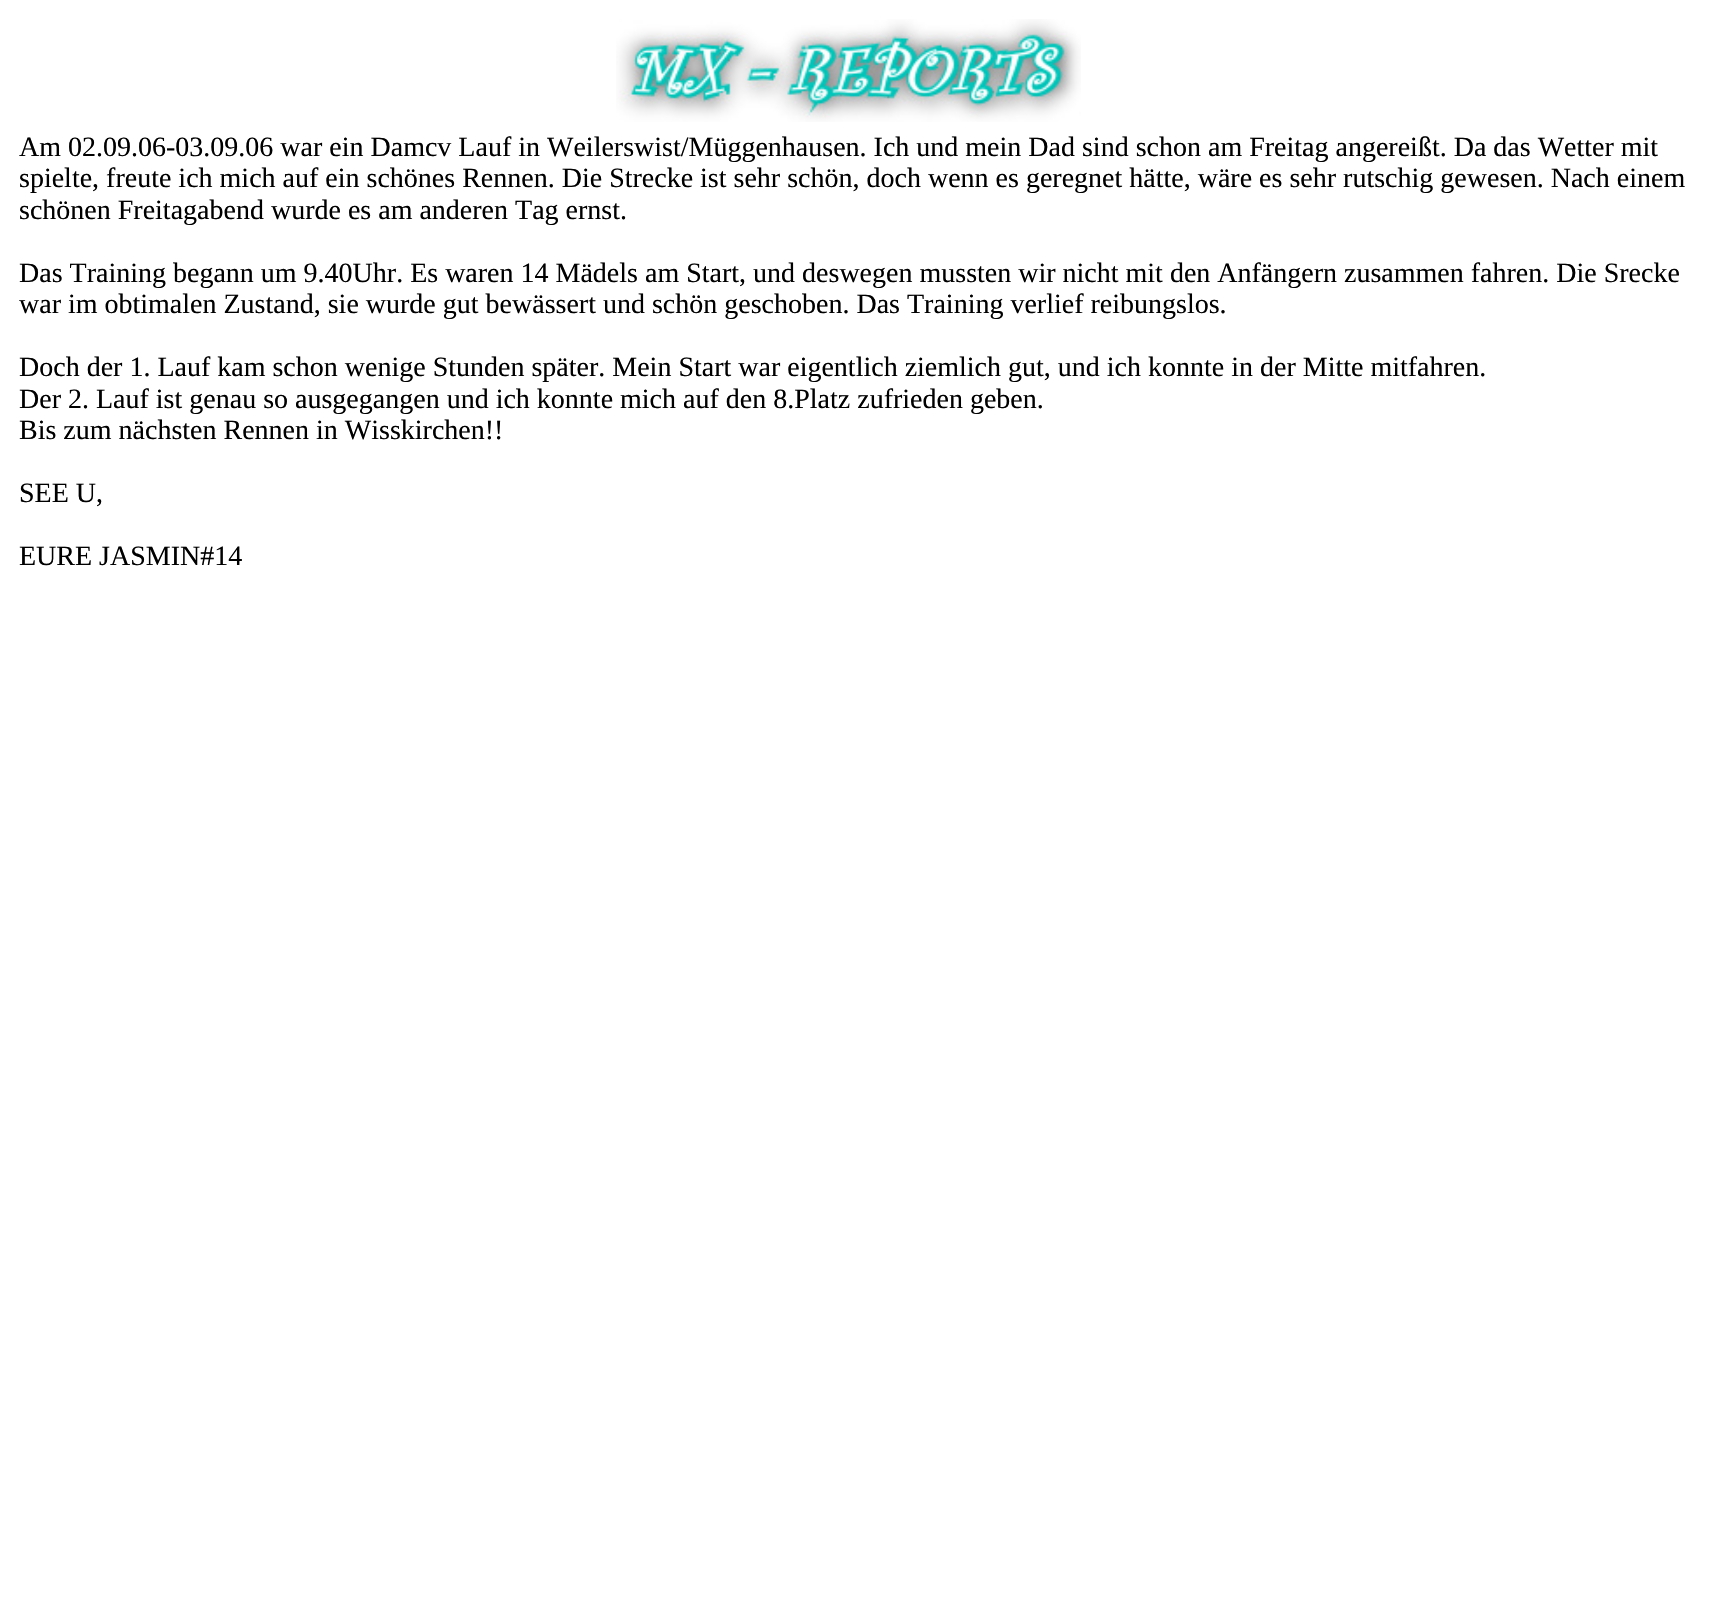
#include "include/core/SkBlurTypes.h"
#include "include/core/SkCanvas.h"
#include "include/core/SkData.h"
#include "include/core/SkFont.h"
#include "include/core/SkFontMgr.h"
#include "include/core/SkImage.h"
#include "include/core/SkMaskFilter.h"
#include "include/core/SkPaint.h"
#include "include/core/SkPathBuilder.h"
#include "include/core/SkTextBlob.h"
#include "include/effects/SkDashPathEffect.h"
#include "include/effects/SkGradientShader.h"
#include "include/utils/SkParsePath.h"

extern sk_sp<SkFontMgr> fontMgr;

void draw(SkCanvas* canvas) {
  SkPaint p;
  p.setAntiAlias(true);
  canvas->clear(SK_ColorWHITE);
  canvas->drawImageRect(SkImages::DeferredFromEncodedData(SkData::MakeFromFileName("images/1.png")), SkRect::MakeLTRB(616, 19, 1081, 122), SkSamplingOptions());
  SkFont font1(fontMgr->matchFamilyStyle("Liberation Serif", SkFontStyle::Normal()), 28);
  font1.setSubpixel(true);
  p.setColor(SK_ColorBLACK);
  canvas->drawString("Am 02.09.06-03.09.06 war ein Damcv Lauf in Weilerswist/Müggenhausen. Ich und mein Dad sind schon am Freitag angereißt. Da das Wetter mit", 19, 156, font1, p);
  canvas->drawString("spielte, freute ich mich auf ein schönes Rennen. Die Strecke ist sehr schön, doch wenn es geregnet hätte, wäre es sehr rutschig gewesen. Nach einem", 19, 187, font1, p);
  canvas->drawString("schönen Freitagabend wurde es am anderen Tag ernst.", 19, 219, font1, p);
  canvas->drawString("Das Training begann um 9.40Uhr. Es waren 14 Mädels am Start, und deswegen mussten wir nicht mit den Anfängern zusammen fahren. Die Srecke", 19, 282, font1, p);
  canvas->drawString("war im obtimalen Zustand, sie wurde gut bewässert und schön geschoben. Das Training verlief reibungslos.", 19, 313, font1, p);
  canvas->drawString("Doch der 1. Lauf kam schon wenige Stunden später. Mein Start war eigentlich ziemlich gut, und ich konnte in der Mitte mitfahren.", 19, 376, font1, p);
  canvas->drawString("Der 2. Lauf ist genau so ausgegangen und ich konnte mich auf den 8.Platz zufrieden geben.", 19, 408, font1, p);
  canvas->drawString("Bis zum nächsten Rennen in Wisskirchen!!", 19, 439, font1, p);
  canvas->drawString("SEE U,", 19, 502, font1, p);
  canvas->drawString("EURE JASMIN#14", 19, 565, font1, p);
}
